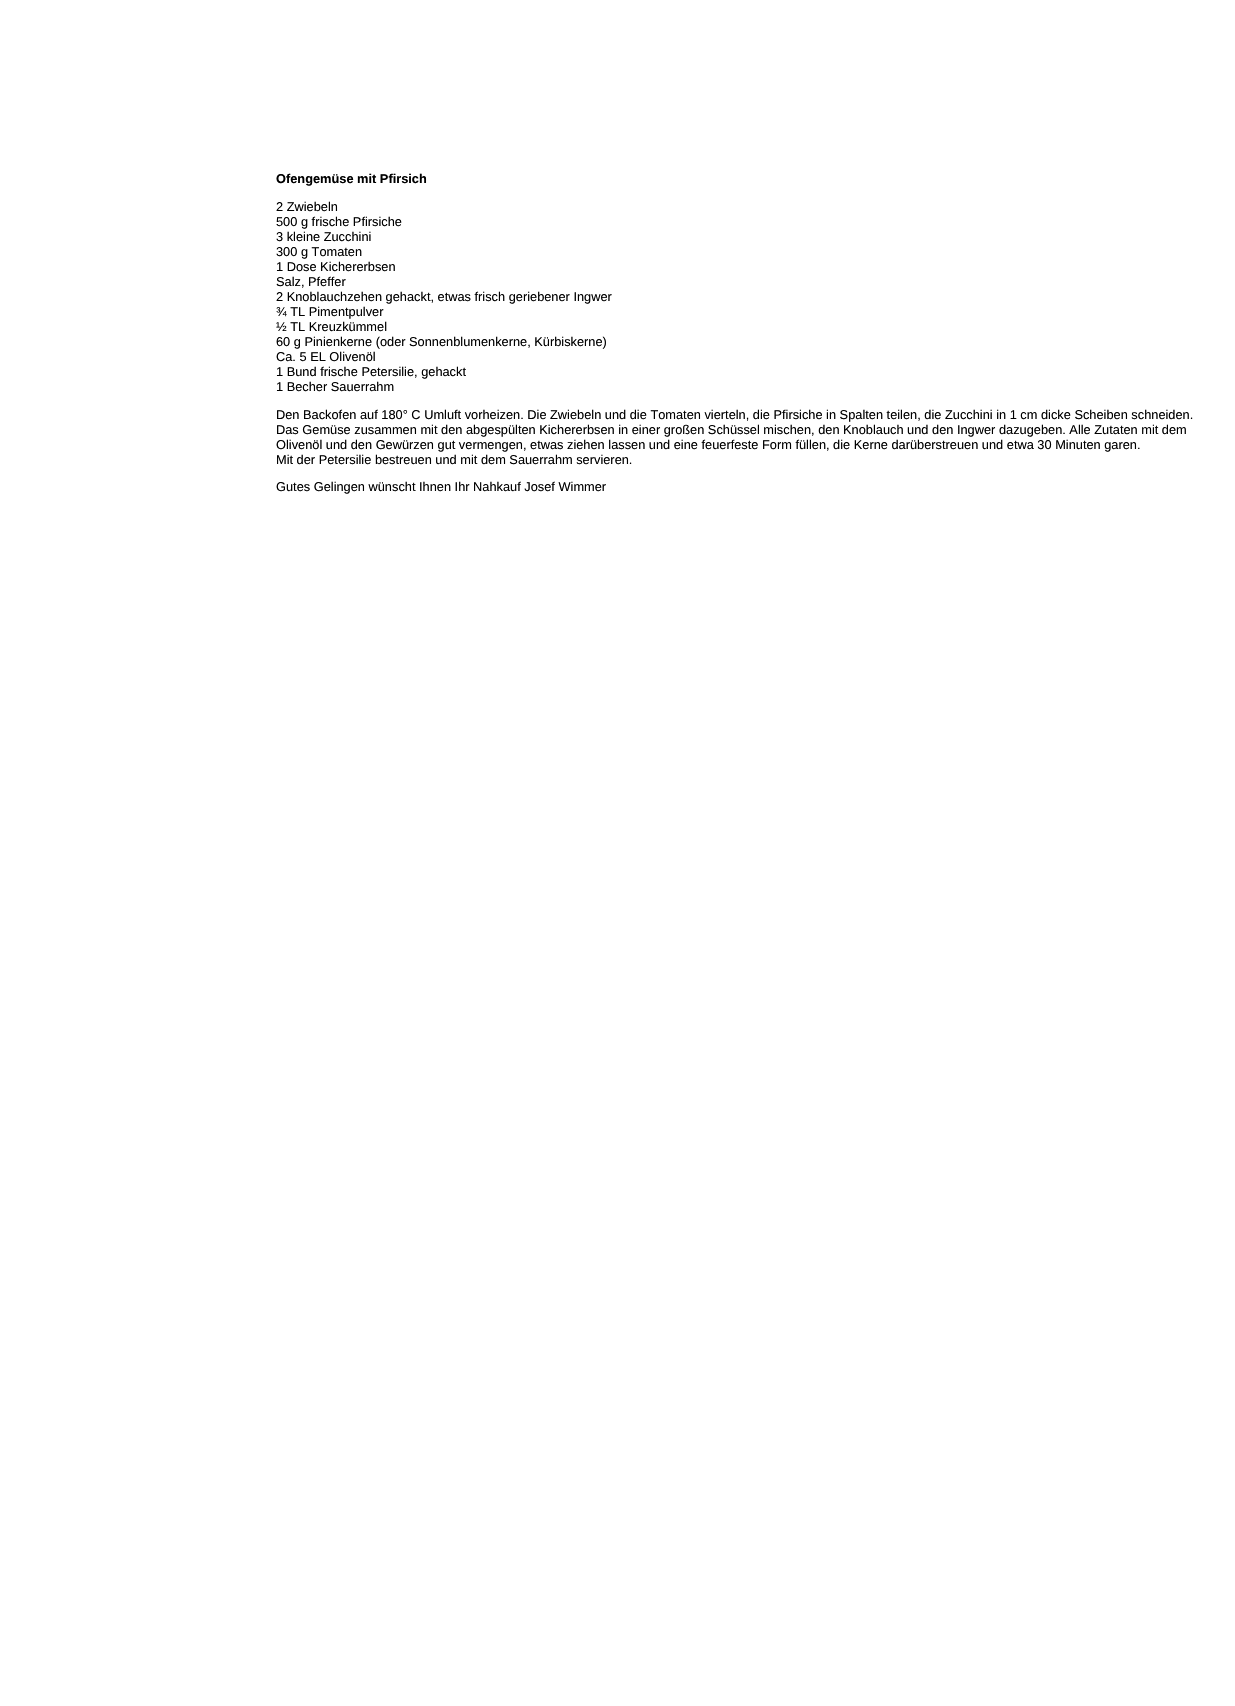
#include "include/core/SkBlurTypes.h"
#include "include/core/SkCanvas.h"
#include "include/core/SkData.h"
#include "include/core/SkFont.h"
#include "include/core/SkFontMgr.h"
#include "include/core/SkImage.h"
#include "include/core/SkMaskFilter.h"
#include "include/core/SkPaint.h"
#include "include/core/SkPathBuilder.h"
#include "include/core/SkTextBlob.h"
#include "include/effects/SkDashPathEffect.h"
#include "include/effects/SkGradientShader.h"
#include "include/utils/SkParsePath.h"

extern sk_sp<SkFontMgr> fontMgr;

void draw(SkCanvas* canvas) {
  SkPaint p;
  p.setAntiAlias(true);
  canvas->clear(SK_ColorWHITE);
  SkFont font1(fontMgr->matchFamilyStyle("Liberation Sans", SkFontStyle::Bold()), 12.8f);
  font1.setSubpixel(true);
  p.setColor(SK_ColorBLACK);
  canvas->drawString("Ofengemüse mit Pfirsich", 276, 183, font1, p);
  SkFont font2(fontMgr->matchFamilyStyle("Liberation Sans", SkFontStyle::Normal()), 12.8f);
  font2.setSubpixel(true);
  canvas->drawString("2 Zwiebeln", 276, 211, font2, p);
  canvas->drawString("500 g frische Pfirsiche", 276, 226, font2, p);
  canvas->drawString("3 kleine Zucchini", 276, 241, font2, p);
  canvas->drawString("300 g Tomaten", 276, 256, font2, p);
  canvas->drawString("1 Dose Kichererbsen", 276, 271, font2, p);
  canvas->drawString("Salz, Pfeffer", 276, 286, font2, p);
  canvas->drawString("2 Knoblauchzehen gehackt, etwas frisch geriebener Ingwer", 276, 301, font2, p);
  canvas->drawString("¾ TL Pimentpulver", 276, 316, font2, p);
  canvas->drawString("½ TL Kreuzkümmel", 276, 331, font2, p);
  canvas->drawString("60 g Pinienkerne (oder Sonnenblumenkerne, Kürbiskerne)", 276, 346, font2, p);
  canvas->drawString("Ca. 5 EL Olivenöl", 276, 361, font2, p);
  canvas->drawString("1 Bund frische Petersilie, gehackt", 276, 376, font2, p);
  canvas->drawString("1 Becher Sauerrahm", 276, 391, font2, p);
  canvas->drawString("Den Backofen auf 180° C Umluft vorheizen. Die Zwiebeln und die Tomaten vierteln, die Pfirsiche in Spalten teilen, die Zucchini in 1 cm dicke Scheiben schneiden.", 276, 419, font2, p);
  canvas->drawString("Das Gemüse zusammen mit den abgespülten Kichererbsen in einer großen Schüssel mischen, den Knoblauch und den Ingwer dazugeben. Alle Zutaten mit dem", 276, 434, font2, p);
  canvas->drawString("Olivenöl und den Gewürzen gut vermengen, etwas ziehen lassen und eine feuerfeste Form füllen, die Kerne darüberstreuen und etwa 30 Minuten garen.", 276, 449, font2, p);
  canvas->drawString("Mit der Petersilie bestreuen und mit dem Sauerrahm servieren.", 276, 464, font2, p);
  canvas->drawString("Gutes Gelingen wünscht Ihnen Ihr Nahkauf Josef Wimmer", 276, 491, font2, p);
}
